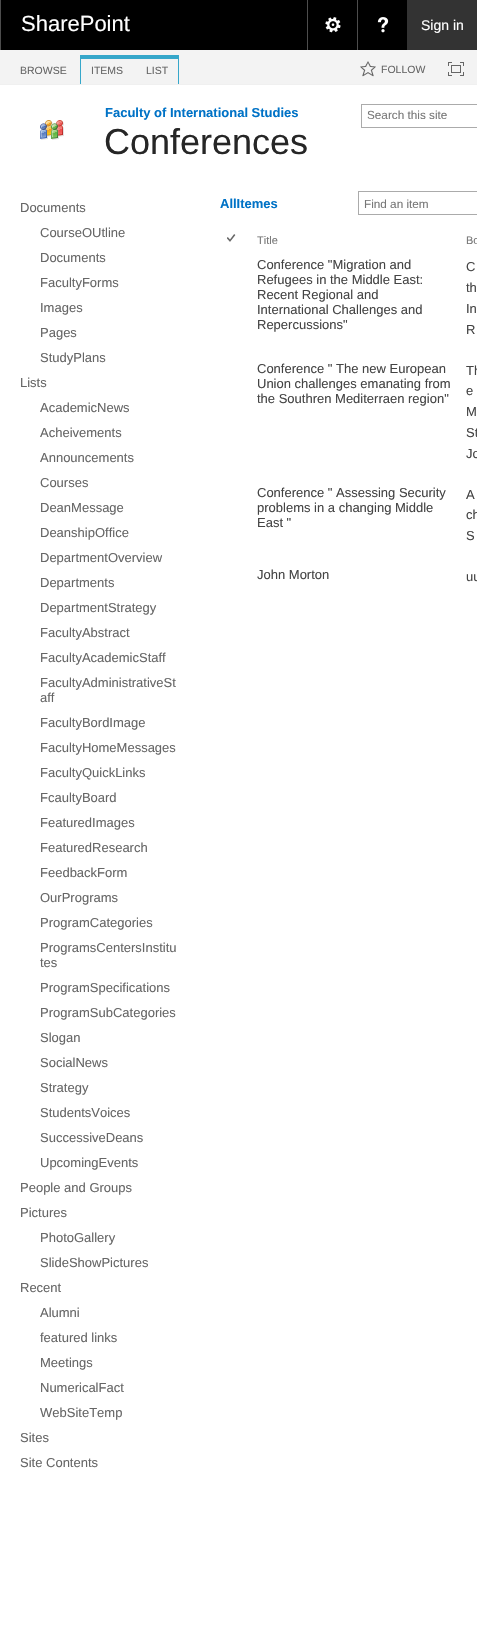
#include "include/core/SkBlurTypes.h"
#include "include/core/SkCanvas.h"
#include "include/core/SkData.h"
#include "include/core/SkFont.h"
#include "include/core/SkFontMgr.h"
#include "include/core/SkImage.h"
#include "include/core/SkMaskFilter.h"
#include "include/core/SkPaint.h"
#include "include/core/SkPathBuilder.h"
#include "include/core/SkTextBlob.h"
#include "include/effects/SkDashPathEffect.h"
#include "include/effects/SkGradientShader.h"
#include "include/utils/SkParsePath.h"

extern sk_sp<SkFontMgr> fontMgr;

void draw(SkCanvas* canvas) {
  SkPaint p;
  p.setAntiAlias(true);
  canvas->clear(SK_ColorWHITE);
  p.setColor(SK_ColorBLACK);
  canvas->drawRect(SkRect::MakeLTRB(1, 0, 407, 50), p);
  p.setColor(SkColorSetRGB(77, 77, 77));
  canvas->drawRect(SkRect::MakeLTRB(0, 0, 1, 50), p);
  canvas->drawRect(SkRect::MakeLTRB(307, 0, 308, 50), p);
  canvas->drawImageRect(SkImages::DeferredFromEncodedData(SkData::MakeFromFileName("images/1.png")), SkRect::MakeLTRB(325, 17, 341, 33), SkSamplingOptions());
  canvas->drawRect(SkRect::MakeLTRB(357, 0, 358, 50), p);
  canvas->drawImageRect(SkImages::DeferredFromEncodedData(SkData::MakeFromFileName("images/2.png")), SkRect::MakeLTRB(377, 17, 389, 33), SkSamplingOptions());
  p.setColor(SkColorSetRGB(51, 51, 51));
  canvas->drawRect(SkRect::MakeLTRB(407, 0, 477, 50), p);
  p.setColor(SkColorSetRGB(243, 243, 243));
  canvas->drawRect(SkRect::MakeLTRB(0, 50, 477, 84), p);
  p.setColor(SkColorSetRGB(240, 240, 240));
  canvas->drawRect(SkRect::MakeLTRB(0, 84, 477, 85), p);
  p.setColor(SkColorSetRGB(54, 167, 202));
  canvas->drawRect(SkRect::MakeLTRB(80, 55, 179, 59), p);
  canvas->drawRect(SkRect::MakeLTRB(80, 59, 81, 84), p);
  canvas->drawRect(SkRect::MakeLTRB(178, 59, 179, 84), p);
  canvas->drawImageRect(SkImages::DeferredFromEncodedData(SkData::MakeFromFileName("images/3.png")), SkRect::MakeLTRB(360, 61, 376, 77), SkSamplingOptions());
  canvas->drawImageRect(SkImages::DeferredFromEncodedData(SkData::MakeFromFileName("images/4.png")), SkRect::MakeLTRB(448, 62, 464, 76), SkSamplingOptions());
  p.setStyle(SkPaint::kStroke_Style);
  p.setStrokeWidth(1);
  p.setColor(SkColorSetRGB(171, 171, 171));
  canvas->drawRect(SkRect::MakeLTRB(361.5f, 104.5f, 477.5f, 127.5f), p);
  canvas->drawImageRect(SkImages::DeferredFromEncodedData(SkData::MakeFromFileName("images/5.png")), SkRect::MakeLTRB(40, 120, 64, 140), SkSamplingOptions());
  canvas->drawRect(SkRect::MakeLTRB(358.5f, 191.5f, 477.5f, 214.5f), p);
  canvas->drawImageRect(SkImages::DeferredFromEncodedData(SkData::MakeFromFileName("images/6.png")), SkRect::MakeLTRB(227, 234, 236, 242), SkSamplingOptions());
  SkFont font1(fontMgr->matchFamilyStyle("Liberation Sans", SkFontStyle::Normal()), 22);
  font1.setSubpixel(true);
  p.setStyle(SkPaint::kFill_Style);
  p.setColor(SK_ColorWHITE);
  canvas->drawString("SharePoint", 21, 31, font1, p);
  SkFont font2(fontMgr->matchFamilyStyle("Liberation Sans", SkFontStyle::Normal()), 14);
  font2.setSubpixel(true);
  canvas->drawString("Sign in", 421, 30, font2, p);
  SkFont font3(fontMgr->matchFamilyStyle("Liberation Sans", SkFontStyle::Normal()), 10.5f);
  font3.setSubpixel(true);
  p.setColor(SkColorSetRGB(102, 102, 102));
  canvas->drawString("BROWSE", 20, 74, font3, p);
  canvas->drawString("ITEMS", 91, 74, font3, p);
  canvas->drawString("LIST", 146, 74, font3, p);
  canvas->drawString("FOLLOW", 381, 73, font3, p);
  SkFont font4(fontMgr->matchFamilyStyle("Liberation Sans", SkFontStyle::Bold()), 13);
  font4.setSubpixel(true);
  p.setColor(SkColorSetRGB(0, 114, 198));
  canvas->drawString("Faculty of International Studies", 105, 117, font4, p);
  SkFont font5(fontMgr->matchFamilyStyle("Liberation Sans", SkFontStyle::Normal()), 36);
  font5.setSubpixel(true);
  p.setColor(SkColorSetRGB(38, 38, 38));
  canvas->drawString("Conferences", 104, 154, font5, p);
  SkFont font6(fontMgr->matchFamilyStyle("Liberation Sans", SkFontStyle::Normal()), 11.75f);
  font6.setSubpixel(true);
  p.setColor(SkColorSetRGB(119, 119, 119));
  canvas->drawString("Search this site", 367, 119, font6, p);
  SkFont font7(fontMgr->matchFamilyStyle("Liberation Sans", SkFontStyle::Normal()), 13);
  font7.setSubpixel(true);
  p.setColor(SkColorSetRGB(102, 102, 102));
  canvas->drawString("Documents", 20, 212, font7, p);
  canvas->drawString("CourseOUtline", 40, 237, font7, p);
  canvas->drawString("Documents", 40, 262, font7, p);
  canvas->drawString("FacultyForms", 40, 287, font7, p);
  canvas->drawString("Images", 40, 312, font7, p);
  canvas->drawString("Pages", 40, 337, font7, p);
  canvas->drawString("StudyPlans", 40, 362, font7, p);
  canvas->drawString("Lists", 20, 387, font7, p);
  canvas->drawString("AcademicNews", 40, 412, font7, p);
  canvas->drawString("Acheivements", 40, 437, font7, p);
  canvas->drawString("Announcements", 40, 462, font7, p);
  canvas->drawString("Courses", 40, 487, font7, p);
  canvas->drawString("DeanMessage", 40, 512, font7, p);
  canvas->drawString("DeanshipOffice", 40, 537, font7, p);
  canvas->drawString("DepartmentOverview", 40, 562, font7, p);
  canvas->drawString("Departments", 40, 587, font7, p);
  canvas->drawString("DepartmentStrategy", 40, 612, font7, p);
  canvas->drawString("FacultyAbstract", 40, 637, font7, p);
  canvas->drawString("FacultyAcademicStaff", 40, 662, font7, p);
  canvas->drawString("FacultyAdministrativeSt", 40, 687, font7, p);
  canvas->drawString("aff", 40, 702, font7, p);
  canvas->drawString("FacultyBordImage", 40, 727, font7, p);
  canvas->drawString("FacultyHomeMessages", 40, 752, font7, p);
  canvas->drawString("FacultyQuickLinks", 40, 777, font7, p);
  canvas->drawString("FcaultyBoard", 40, 802, font7, p);
  canvas->drawString("FeaturedImages", 40, 827, font7, p);
  canvas->drawString("FeaturedResearch", 40, 852, font7, p);
  canvas->drawString("FeedbackForm", 40, 877, font7, p);
  canvas->drawString("OurPrograms", 40, 902, font7, p);
  canvas->drawString("ProgramCategories", 40, 927, font7, p);
  canvas->drawString("ProgramsCentersInstitu", 40, 952, font7, p);
  canvas->drawString("tes", 40, 967, font7, p);
  canvas->drawString("ProgramSpecifications", 40, 992, font7, p);
  canvas->drawString("ProgramSubCategories", 40, 1017, font7, p);
  canvas->drawString("Slogan", 40, 1042, font7, p);
  canvas->drawString("SocialNews", 40, 1067, font7, p);
  canvas->drawString("Strategy", 40, 1092, font7, p);
  canvas->drawString("StudentsVoices", 40, 1117, font7, p);
  canvas->drawString("SuccessiveDeans", 40, 1142, font7, p);
  canvas->drawString("UpcomingEvents", 40, 1167, font7, p);
  canvas->drawString("People and Groups", 20, 1192, font7, p);
  canvas->drawString("Pictures", 20, 1217, font7, p);
  canvas->drawString("PhotoGallery", 40, 1242, font7, p);
  canvas->drawString("SlideShowPictures", 40, 1267, font7, p);
  canvas->drawString("Recent", 20, 1292, font7, p);
  canvas->drawString("Alumni", 40, 1317, font7, p);
  canvas->drawString("featured links", 40, 1342, font7, p);
  canvas->drawString("Meetings", 40, 1367, font7, p);
  canvas->drawString("NumericalFact", 40, 1392, font7, p);
  canvas->drawString("WebSiteTemp", 40, 1417, font7, p);
  canvas->drawString("Sites", 20, 1442, font7, p);
  canvas->drawString("Site Contents", 20, 1467, font7, p);
  p.setColor(SkColorSetRGB(0, 114, 198));
  canvas->drawString("AllItemes", 220, 208, font4, p);
  p.setColor(SkColorSetRGB(119, 119, 119));
  canvas->drawString("Find an item", 364, 208, font6, p);
  SkFont font8(fontMgr->matchFamilyStyle("Liberation Sans", SkFontStyle::Normal()), 11);
  font8.setSubpixel(true);
  canvas->drawString("Title", 257, 244, font8, p);
  canvas->drawString("Bo", 466, 244, font8, p);
  p.setColor(SkColorSetRGB(68, 68, 68));
  canvas->drawString("Conference \"Migration and", 257, 269, font7, p);
  canvas->drawString("Refugees in the Middle East:", 257, 284, font7, p);
  canvas->drawString("Recent Regional and", 257, 299, font7, p);
  canvas->drawString("International Challenges and", 257, 314, font7, p);
  canvas->drawString("Repercussions\"", 257, 329, font7, p);
  canvas->drawString("C", 466, 271, font7, p);
  canvas->drawString("th", 466, 292, font7, p);
  canvas->drawString("In", 466, 313, font7, p);
  canvas->drawString("R", 466, 334, font7, p);
  canvas->drawString("Conference \" The new European", 257, 373, font7, p);
  canvas->drawString("Union challenges emanating from", 257, 388, font7, p);
  canvas->drawString("the Southren Mediterraen region\"", 257, 403, font7, p);
  canvas->drawString("Th", 466, 375, font7, p);
  canvas->drawString("e", 466, 395, font7, p);
  canvas->drawString("M", 466, 416, font7, p);
  canvas->drawString("St", 466, 437, font7, p);
  canvas->drawString("Jo", 466, 458, font7, p);
  canvas->drawString("Conference \" Assessing Security", 257, 497, font7, p);
  canvas->drawString("problems in a changing Middle", 257, 512, font7, p);
  canvas->drawString("East \"", 257, 527, font7, p);
  canvas->drawString("A", 466, 499, font7, p);
  canvas->drawString("ch", 466, 519, font7, p);
  canvas->drawString("S", 466, 540, font7, p);
  canvas->drawString("John Morton", 257, 579, font7, p);
  canvas->drawString("uu", 466, 581, font7, p);
}
